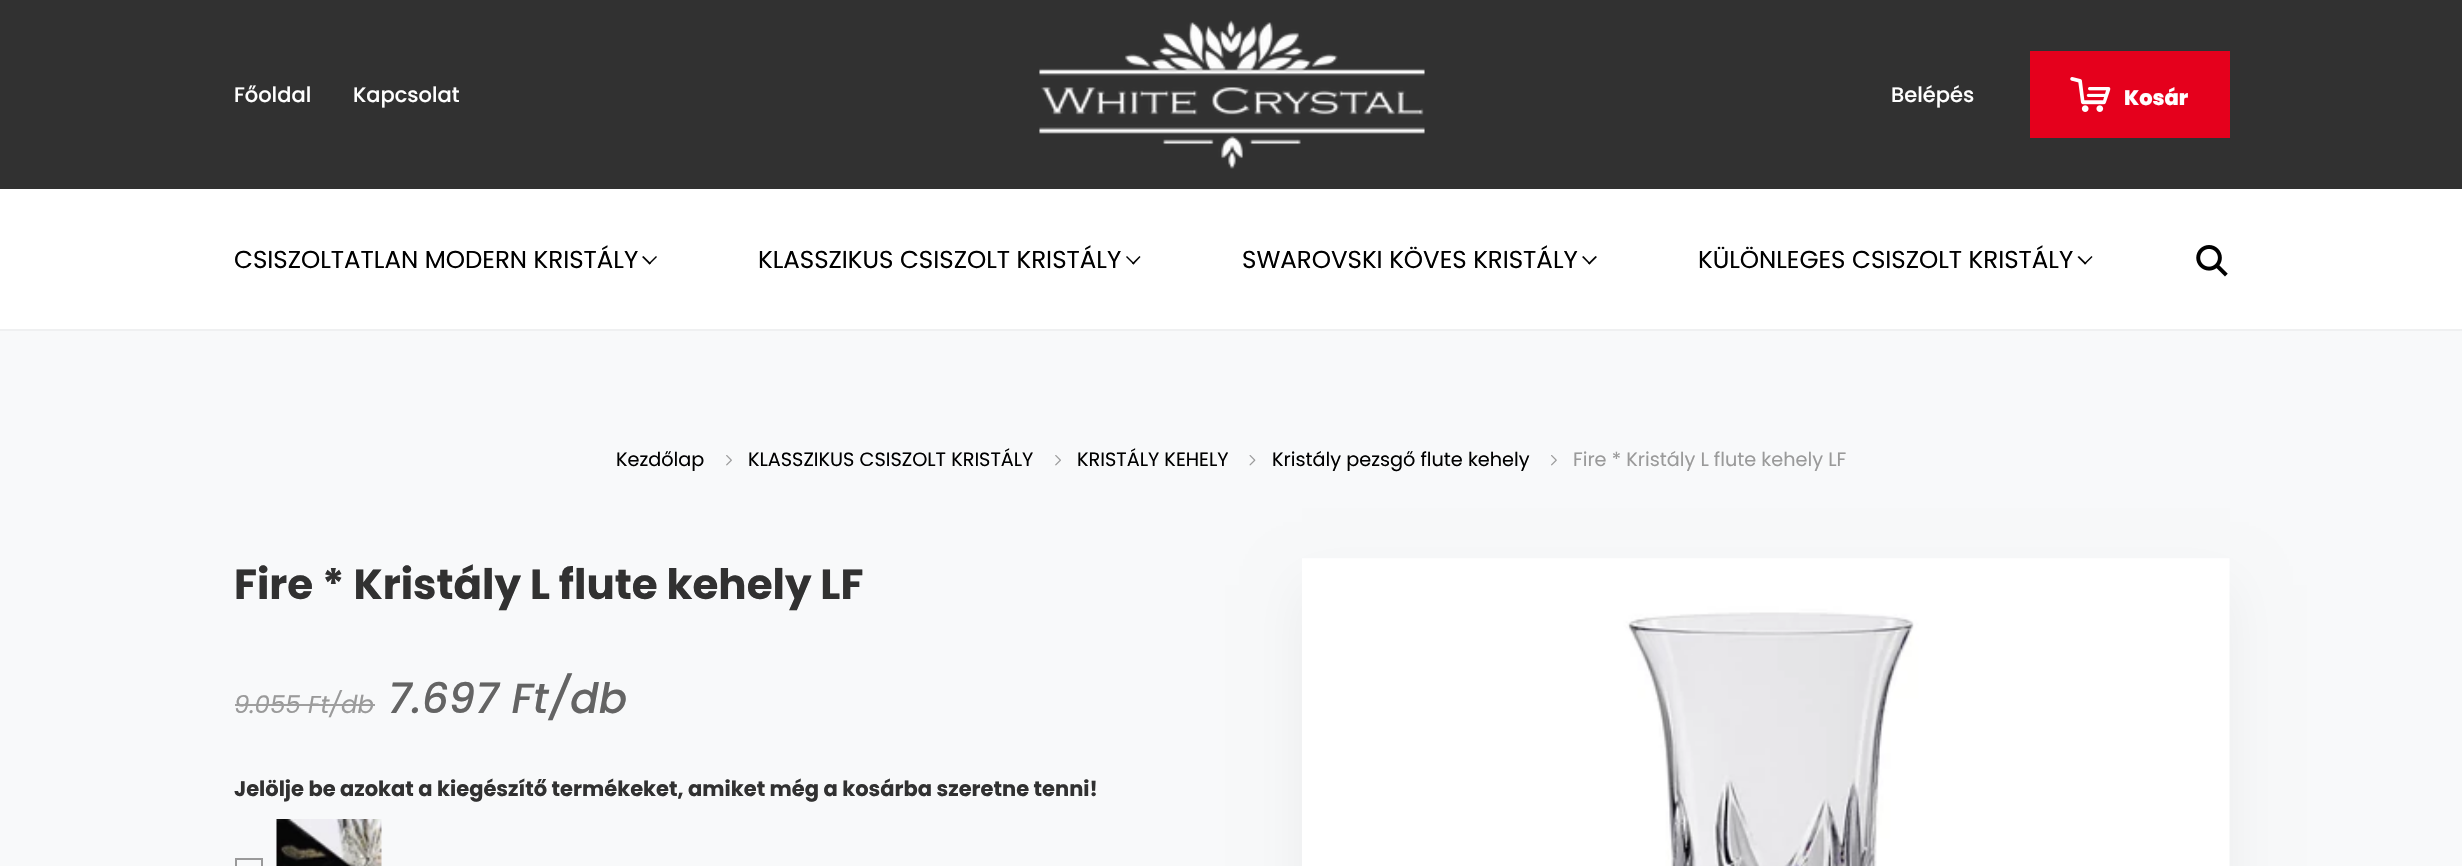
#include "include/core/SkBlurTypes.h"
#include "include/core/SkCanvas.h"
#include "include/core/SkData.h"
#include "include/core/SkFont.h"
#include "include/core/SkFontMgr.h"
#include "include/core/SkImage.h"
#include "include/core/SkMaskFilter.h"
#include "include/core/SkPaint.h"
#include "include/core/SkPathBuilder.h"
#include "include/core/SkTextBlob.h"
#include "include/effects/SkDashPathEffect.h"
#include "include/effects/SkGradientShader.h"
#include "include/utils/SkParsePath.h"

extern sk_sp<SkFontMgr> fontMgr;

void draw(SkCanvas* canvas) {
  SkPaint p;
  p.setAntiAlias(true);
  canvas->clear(SK_ColorWHITE);
  p.setColor(SkColorSetRGB(49, 49, 49));
  canvas->drawRect(SkRect::MakeLTRB(0, 0, 2462, 189), p);
  canvas->drawImageRect(SkImages::DeferredFromEncodedData(SkData::MakeFromFileName("images/1.png")), SkRect::MakeLTRB(1039, 20, 1425, 169), SkSamplingOptions());
  p.setColor(SkColorSetRGB(229, 0, 28));
  canvas->drawRect(SkRect::MakeLTRB(2030, 51, 2230, 138), p);
  canvas->drawImageRect(SkImages::DeferredFromEncodedData(SkData::MakeFromFileName("images/2.png")), SkRect::MakeLTRB(2070, 77, 2111, 112), SkSamplingOptions());
  p.setColor(SkColorSetRGB(239, 240, 241));
  canvas->drawRect(SkRect::MakeLTRB(0, 329, 2462, 331), p);
  p.setColor(SK_ColorBLACK);
  canvas->drawPath(SkPathBuilder().moveTo(656, 256).lineTo(657, 257).lineTo(649.5f, 264.5f).lineTo(648.5f, 263.5f).close().detach(), p);
  canvas->drawPath(SkPathBuilder().moveTo(643.5f, 256).lineTo(651, 263.5f).lineTo(649.5f, 264.5f).lineTo(642, 257).close().detach(), p);
  canvas->drawPath(SkPathBuilder().moveTo(1139.5f, 256).lineTo(1140.5f, 257).lineTo(1133.5f, 264.5f).lineTo(1132, 263.5f).close().detach(), p);
  canvas->drawPath(SkPathBuilder().moveTo(1127, 256).lineTo(1134.5f, 263.5f).lineTo(1133.5f, 264.5f).lineTo(1126, 257).close().detach(), p);
  canvas->drawPath(SkPathBuilder().moveTo(1595.5f, 256).lineTo(1597, 257).lineTo(1589.5f, 264.5f).lineTo(1588, 263.5f).close().detach(), p);
  canvas->drawPath(SkPathBuilder().moveTo(1583.5f, 256).lineTo(1590.5f, 263.5f).lineTo(1589.5f, 264.5f).lineTo(1582, 257).close().detach(), p);
  canvas->drawPath(SkPathBuilder().moveTo(2091.5f, 256).lineTo(2092.5f, 257).lineTo(2085, 264.5f).lineTo(2084, 263.5f).close().detach(), p);
  canvas->drawPath(SkPathBuilder().moveTo(2079, 256).lineTo(2086.5f, 263.5f).lineTo(2085, 264.5f).lineTo(2077.5f, 257).close().detach(), p);
  canvas->drawImageRect(SkImages::DeferredFromEncodedData(SkData::MakeFromFileName("images/3.png")), SkRect::MakeLTRB(2196, 245, 2228, 277), SkSamplingOptions());
  p.setColor(SkColorSetRGB(248, 249, 250));
  canvas->drawRect(SkRect::MakeLTRB(0, 331, 2462, 866), p);
  canvas->drawImageRect(SkImages::DeferredFromEncodedData(SkData::MakeFromFileName("images/4.png")), SkRect::MakeLTRB(726, 455, 732, 466), SkSamplingOptions());
  canvas->drawImageRect(SkImages::DeferredFromEncodedData(SkData::MakeFromFileName("images/5.png")), SkRect::MakeLTRB(1055, 455, 1061, 466), SkSamplingOptions());
  canvas->drawImageRect(SkImages::DeferredFromEncodedData(SkData::MakeFromFileName("images/6.png")), SkRect::MakeLTRB(1249, 455, 1256, 466), SkSamplingOptions());
  canvas->drawImageRect(SkImages::DeferredFromEncodedData(SkData::MakeFromFileName("images/7.png")), SkRect::MakeLTRB(1551, 455, 1557, 466), SkSamplingOptions());
  p.setStyle(SkPaint::kStroke_Style);
  p.setStrokeWidth(2);
  p.setColor(SkColorSetRGB(154, 154, 154));
  canvas->drawRect(SkRect::MakeLTRB(236, 859, 262, 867), p);
  canvas->drawImageRect(SkImages::DeferredFromEncodedData(SkData::MakeFromFileName("images/8.png")), SkRect::MakeLTRB(276, 819, 382, 866), SkSamplingOptions());
  p.setStyle(SkPaint::kFill_Style);
  p.setColor(SkColorSetARGB(13, 0, 0, 0));
  p.setMaskFilter(SkMaskFilter::MakeBlur(kNormal_SkBlurStyle, 26));
  canvas->drawRect(SkRect::MakeLTRB(1302, 585, 2230, 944), p);
  p.setMaskFilter(nullptr);
  canvas->drawImageRect(SkImages::DeferredFromEncodedData(SkData::MakeFromFileName("images/9.png")), SkRect::MakeLTRB(1302, 558, 2230, 866), SkSamplingOptions());
  SkFont font1(fontMgr->matchFamilyStyle("Poppins", SkFontStyle(500, SkFontStyle::kNormal_Width, SkFontStyle::kUpright_Slant)), 21);
  font1.setSubpixel(true);
  p.setColor(SK_ColorWHITE);
  canvas->drawString("Főoldal", 234, 102, font1, p);
  canvas->drawString("Kapcsolat", 353, 102, font1, p);
  canvas->drawString("Belépés", 1891, 102, font1, p);
  SkFont font2(fontMgr->matchFamilyStyle("Poppins", SkFontStyle(800, SkFontStyle::kNormal_Width, SkFontStyle::kUpright_Slant)), 21);
  font2.setSubpixel(true);
  canvas->drawString("Kosár", 2124, 105, font2, p);
  SkFont font3(fontMgr->matchFamilyStyle("Poppins", SkFontStyle::Normal()), 24.5f);
  font3.setSubpixel(true);
  p.setColor(SK_ColorBLACK);
  canvas->drawString("CSISZOLTATLAN MODERN KRISTÁLY", 234, 268, font3, p);
  canvas->drawString("KLASSZIKUS CSISZOLT KRISTÁLY", 758, 268, font3, p);
  canvas->drawString("SWAROVSKI KÖVES KRISTÁLY", 1242, 268, font3, p);
  canvas->drawString("KÜLÖNLEGES CSISZOLT KRISTÁLY", 1698, 268, font3, p);
  SkFont font4(fontMgr->matchFamilyStyle("Poppins", SkFontStyle::Normal()), 19.25f);
  font4.setSubpixel(true);
  canvas->drawString("Kezdőlap", 616, 466, font4, p);
  canvas->drawString("KLASSZIKUS CSISZOLT KRISTÁLY", 748, 466, font4, p);
  canvas->drawString("KRISTÁLY KEHELY", 1077, 466, font4, p);
  canvas->drawString("Kristály pezsgő flute kehely", 1272, 466, font4, p);
  p.setColor(SkColorSetRGB(154, 154, 154));
  canvas->drawString("Fire * Kristály L flute kehely LF", 1573, 466, font4, p);
  SkFont font5(fontMgr->matchFamilyStyle("Poppins", SkFontStyle::Bold()), 42);
  font5.setSubpixel(true);
  p.setColor(SkColorSetRGB(49, 49, 49));
  canvas->drawString("Fire * Kristály L flute kehely LF", 234, 599, font5, p);
  SkFont font6(fontMgr->matchFamilyStyle("Poppins", SkFontStyle::Italic()), 24.5f);
  font6.setSubpixel(true);
  p.setColor(SkColorSetRGB(154, 154, 154));
  canvas->drawString("9.055 Ft/db", 234, 713, font6, p);
  p.setColor(SkColorSetRGB(159, 159, 159));
  canvas->drawRect(SkRect::MakeLTRB(235, 704, 375, 706), p);
  SkFont font7(fontMgr->matchFamilyStyle("Poppins", SkFontStyle(500, SkFontStyle::kNormal_Width, SkFontStyle::kItalic_Slant)), 42);
  font7.setSubpixel(true);
  p.setColor(SkColorSetRGB(100, 100, 100));
  canvas->drawString("7.697 Ft/db", 388, 713, font7, p);
  SkFont font8(fontMgr->matchFamilyStyle("Poppins", SkFontStyle::Bold()), 21);
  font8.setSubpixel(true);
  p.setColor(SkColorSetRGB(49, 49, 49));
  canvas->drawString("Jelölje be azokat a kiegészítő termékeket, amiket még a kosárba szeretne tenni!", 234, 796, font8, p);
}
